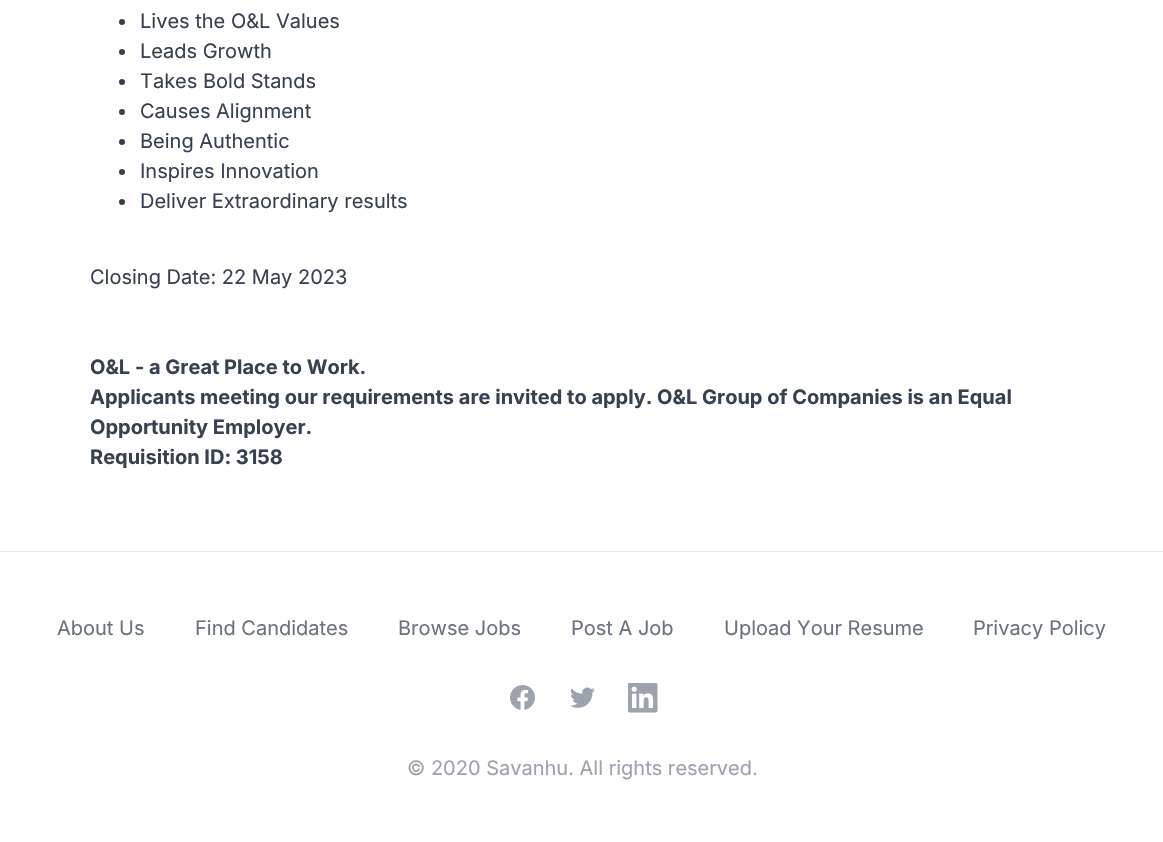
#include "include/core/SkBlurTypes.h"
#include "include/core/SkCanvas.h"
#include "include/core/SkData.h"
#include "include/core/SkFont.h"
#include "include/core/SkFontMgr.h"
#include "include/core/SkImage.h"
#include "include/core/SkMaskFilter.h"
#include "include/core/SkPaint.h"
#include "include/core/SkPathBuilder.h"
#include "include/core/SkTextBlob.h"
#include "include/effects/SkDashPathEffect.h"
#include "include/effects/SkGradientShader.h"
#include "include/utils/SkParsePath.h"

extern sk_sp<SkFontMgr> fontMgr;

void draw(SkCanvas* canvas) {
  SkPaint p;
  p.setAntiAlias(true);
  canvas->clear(SK_ColorWHITE);
  p.setColor(SkColorSetRGB(55, 65, 81));
  canvas->drawCircle(122, 22, 3, p);
  canvas->drawCircle(122, 52, 3, p);
  canvas->drawCircle(122, 82, 3, p);
  canvas->drawCircle(122, 112, 3, p);
  canvas->drawCircle(122, 142, 3, p);
  canvas->drawCircle(122, 172, 3, p);
  canvas->drawCircle(122, 202, 3, p);
  p.setColor(SkColorSetRGB(229, 231, 235));
  canvas->drawRect(SkRect::MakeLTRB(0, 551, 1163, 552), p);
  canvas->drawImageRect(SkImages::DeferredFromEncodedData(SkData::MakeFromFileName("images/1.png")), SkRect::MakeLTRB(510, 685, 535, 710), SkSamplingOptions());
  canvas->drawImageRect(SkImages::DeferredFromEncodedData(SkData::MakeFromFileName("images/2.png")), SkRect::MakeLTRB(570, 687, 595, 708), SkSamplingOptions());
  canvas->drawImageRect(SkImages::DeferredFromEncodedData(SkData::MakeFromFileName("images/3.png")), SkRect::MakeLTRB(628, 683, 658, 713), SkSamplingOptions());
  SkFont font1(fontMgr->matchFamilyStyle("Inter", SkFontStyle::Normal()), 20);
  font1.setSubpixel(true);
  p.setColor(SkColorSetRGB(55, 65, 81));
  canvas->drawString("Lives the O&L Values", 140, 28, font1, p);
  canvas->drawString("Leads Growth", 140, 58, font1, p);
  canvas->drawString("Takes Bold Stands", 140, 88, font1, p);
  canvas->drawString("Causes Alignment", 140, 118, font1, p);
  canvas->drawString("Being Authentic", 140, 148, font1, p);
  canvas->drawString("Inspires Innovation", 140, 178, font1, p);
  canvas->drawString("Deliver Extraordinary results", 140, 208, font1, p);
  canvas->drawString("Closing Date: 22 May 2023", 90, 284, font1, p);
  SkFont font2(fontMgr->matchFamilyStyle("Inter", SkFontStyle::Bold()), 20);
  font2.setSubpixel(true);
  canvas->drawString("O&L - a Great Place to Work.", 90, 374, font2, p);
  canvas->drawString("Applicants meeting our requirements are invited to apply. O&L Group of Companies is an Equal", 90, 404, font2, p);
  canvas->drawString("Opportunity Employer.", 90, 434, font2, p);
  canvas->drawString("Requisition ID: 3158", 90, 464, font2, p);
  p.setColor(SkColorSetRGB(107, 114, 128));
  canvas->drawString("About Us", 57, 635, font1, p);
  canvas->drawString("Find Candidates", 195, 635, font1, p);
  canvas->drawString("Browse Jobs", 398, 635, font1, p);
  canvas->drawString("Post A Job", 571, 635, font1, p);
  canvas->drawString("Upload Your Resume", 724, 635, font1, p);
  canvas->drawString("Privacy Policy", 973, 635, font1, p);
  p.setColor(SkColorSetRGB(156, 163, 175));
  canvas->drawString("© 2020 Savanhu. All rights reserved.", 407, 775, font1, p);
}
